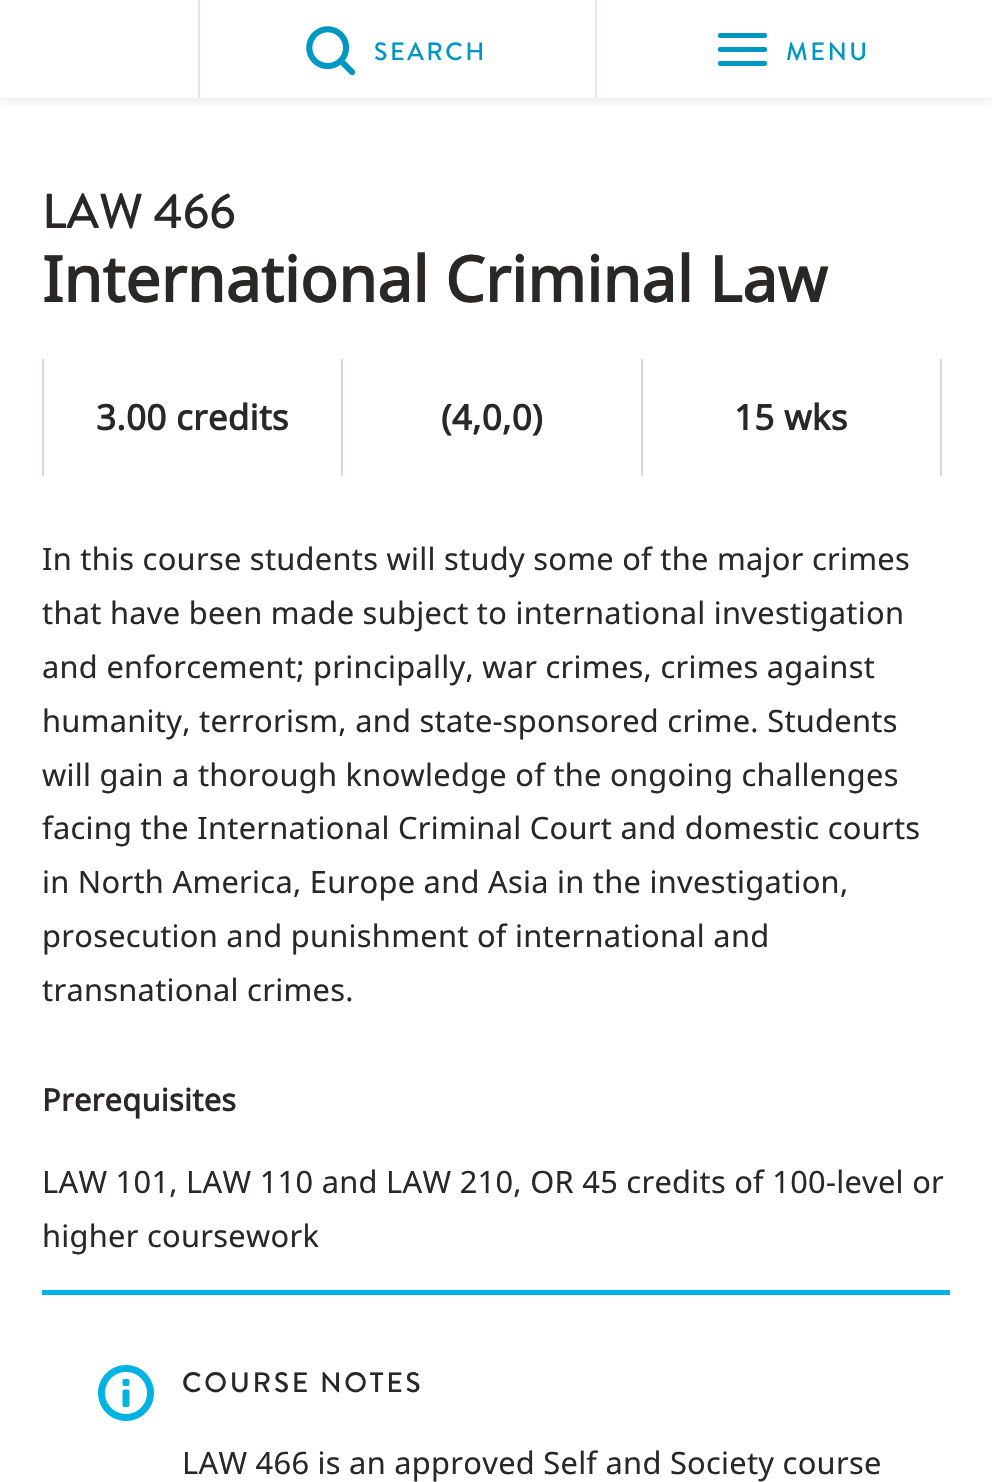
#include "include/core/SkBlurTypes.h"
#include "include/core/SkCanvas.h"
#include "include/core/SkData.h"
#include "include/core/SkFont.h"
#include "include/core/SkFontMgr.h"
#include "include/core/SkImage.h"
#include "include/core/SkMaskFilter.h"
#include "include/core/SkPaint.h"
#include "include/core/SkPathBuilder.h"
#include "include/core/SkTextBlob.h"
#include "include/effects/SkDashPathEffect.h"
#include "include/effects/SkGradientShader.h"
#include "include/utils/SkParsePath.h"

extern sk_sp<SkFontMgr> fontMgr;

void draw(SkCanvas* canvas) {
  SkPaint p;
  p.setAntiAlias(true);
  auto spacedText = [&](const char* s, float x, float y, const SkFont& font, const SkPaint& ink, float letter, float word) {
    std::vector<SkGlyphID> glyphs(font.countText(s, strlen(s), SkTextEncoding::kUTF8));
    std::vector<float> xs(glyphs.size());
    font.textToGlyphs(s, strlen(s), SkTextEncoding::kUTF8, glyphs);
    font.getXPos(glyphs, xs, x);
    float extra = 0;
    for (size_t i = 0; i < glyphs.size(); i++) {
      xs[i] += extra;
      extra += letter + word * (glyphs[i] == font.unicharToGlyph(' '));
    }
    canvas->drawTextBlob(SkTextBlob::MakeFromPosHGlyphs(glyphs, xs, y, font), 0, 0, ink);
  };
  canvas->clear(SK_ColorWHITE);
  canvas->save();
  canvas->clipRect(SkRect::MakeLTRB(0, 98, 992, 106));
  p.setColor(SkColorSetARGB(38, 42, 39, 36));
  p.setMaskFilter(SkMaskFilter::MakeBlur(kNormal_SkBlurStyle, 7));
  canvas->drawRect(SkRect::MakeLTRB(0, 0, 992, 98), p);
  p.setMaskFilter(nullptr);
  canvas->restore();
  p.setColor(SkColorSetRGB(222, 230, 239));
  canvas->drawRect(SkRect::MakeLTRB(198, 0, 200, 98), p);
  p.setColor(SkColorSetRGB(229, 235, 242));
  canvas->drawRect(SkRect::MakeLTRB(595, 0, 597, 98), p);
  canvas->drawImageRect(SkImages::DeferredFromEncodedData(SkData::MakeFromFileName("images/1.png")), SkRect::MakeLTRB(306, 26, 355, 75), SkSamplingOptions());
  p.setColor(SkColorSetRGB(0, 152, 194));
  canvas->drawRoundRect(SkRect::MakeLTRB(718, 33, 767, 38), 2, 2, p);
  canvas->drawRoundRect(SkRect::MakeLTRB(718, 47, 767, 52), 2, 2, p);
  canvas->drawRoundRect(SkRect::MakeLTRB(718, 61, 767, 66), 2, 2, p);
  p.setColor(SkColorSetRGB(205, 218, 230));
  canvas->drawRect(SkRect::MakeLTRB(42, 359, 44, 476), p);
  canvas->drawRect(SkRect::MakeLTRB(341, 359, 343, 476), p);
  canvas->drawRect(SkRect::MakeLTRB(641, 359, 643, 476), p);
  canvas->drawRect(SkRect::MakeLTRB(940, 359, 942, 476), p);
  p.setColor(SkColorSetRGB(0, 179, 227));
  canvas->drawRect(SkRect::MakeLTRB(42, 1290, 950, 1295), p);
  canvas->drawImageRect(SkImages::DeferredFromEncodedData(SkData::MakeFromFileName("images/2.png")), SkRect::MakeLTRB(98, 1365, 154, 1421), SkSamplingOptions());
  SkFont font1(fontMgr->matchFamilyStyle("Brandon Grotesque", SkFontStyle(500, SkFontStyle::kNormal_Width, SkFontStyle::kUpright_Slant)), 25);
  font1.setSubpixel(true);
  p.setColor(SkColorSetRGB(0, 152, 194));
  spacedText("SEARCH", 374, 60, font1, p, 2.5f, 0);
  spacedText("MENU", 786, 60, font1, p, 2.5f, 0);
  SkFont font2(fontMgr->matchFamilyStyle("Brandon Grotesque", SkFontStyle(500, SkFontStyle::kNormal_Width, SkFontStyle::kUpright_Slant)), 49);
  font2.setSubpixel(true);
  p.setColor(SkColorSetRGB(42, 39, 36));
  canvas->drawString("LAW 466", 42, 228, font2, p);
  SkFont font3(fontMgr->matchFamilyStyle("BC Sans", SkFontStyle::Bold()), 63);
  font3.setSubpixel(true);
  canvas->drawString("International Criminal Law", 42, 302, font3, p);
  SkFont font4(fontMgr->matchFamilyStyle("BC Sans", SkFontStyle::Bold()), 35);
  font4.setSubpixel(true);
  spacedText("3.00 credits", 96, 430, font4, p, 0.28f, 0);
  spacedText("(4,0,0)", 441, 430, font4, p, 0.28f, 0);
  spacedText("15 wks", 734, 430, font4, p, 0.28f, 0);
  SkFont font5(fontMgr->matchFamilyStyle("BC Sans", SkFontStyle::Normal()), 30.8f);
  font5.setSubpixel(true);
  spacedText("In this course students will study some of the major crimes", 42, 570, font5, p, 0.28f, 0);
  spacedText("that have been made subject to international investigation", 42, 624, font5, p, 0.28f, 0);
  spacedText("and enforcement; principally, war crimes, crimes against", 42, 678, font5, p, 0.28f, 0);
  spacedText("humanity, terrorism, and state-sponsored crime. Students", 42, 732, font5, p, 0.28f, 0);
  spacedText("will gain a thorough knowledge of the ongoing challenges", 42, 786, font5, p, 0.28f, 0);
  spacedText("facing the International Criminal Court and domestic courts", 42, 839, font5, p, 0.28f, 0);
  spacedText("in North America, Europe and Asia in the investigation,", 42, 893, font5, p, 0.28f, 0);
  spacedText("prosecution and punishment of international and", 42, 947, font5, p, 0.28f, 0);
  spacedText("transnational crimes.", 42, 1001, font5, p, 0.28f, 0);
  SkFont font6(fontMgr->matchFamilyStyle("BC Sans", SkFontStyle::Bold()), 30.8f);
  font6.setSubpixel(true);
  spacedText("Prerequisites", 42, 1111, font6, p, 0.28f, 0);
  spacedText("LAW 101, LAW 110 and LAW 210, OR 45 credits of 100-level or", 42, 1193, font5, p, 0.28f, 0);
  spacedText("higher coursework", 42, 1247, font5, p, 0.28f, 0);
  SkFont font7(fontMgr->matchFamilyStyle("Brandon Grotesque", SkFontStyle(500, SkFontStyle::kNormal_Width, SkFontStyle::kUpright_Slant)), 28);
  font7.setSubpixel(true);
  spacedText("COURSE NOTES", 182, 1392, font7, p, 2.75f, 0);
  spacedText("LAW 466 is an approved Self and Society course", 182, 1474, font5, p, 0.28f, 0);
}
